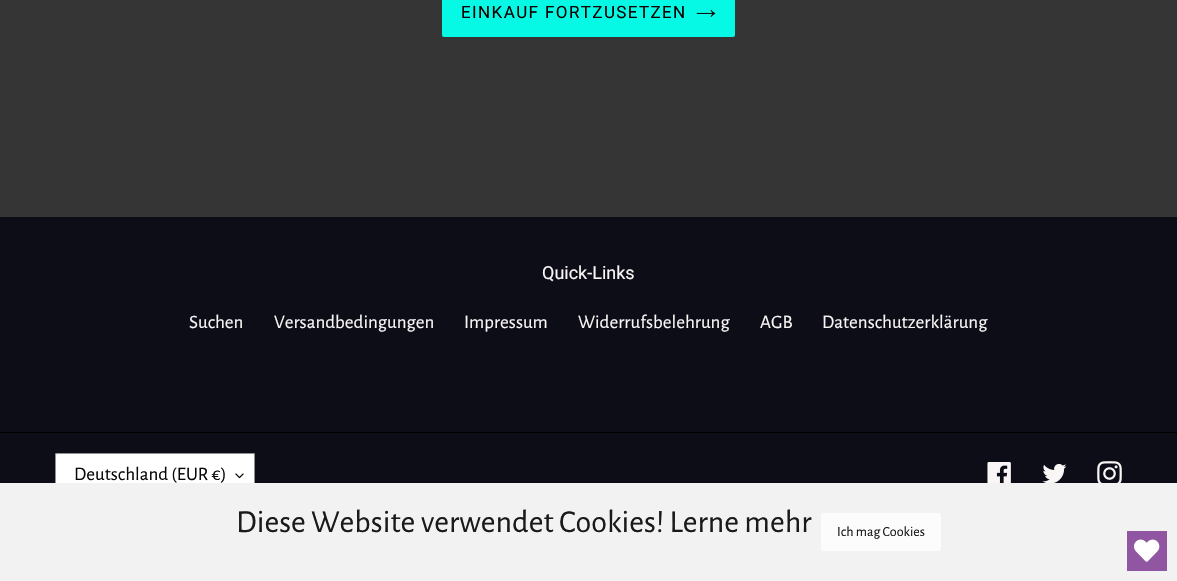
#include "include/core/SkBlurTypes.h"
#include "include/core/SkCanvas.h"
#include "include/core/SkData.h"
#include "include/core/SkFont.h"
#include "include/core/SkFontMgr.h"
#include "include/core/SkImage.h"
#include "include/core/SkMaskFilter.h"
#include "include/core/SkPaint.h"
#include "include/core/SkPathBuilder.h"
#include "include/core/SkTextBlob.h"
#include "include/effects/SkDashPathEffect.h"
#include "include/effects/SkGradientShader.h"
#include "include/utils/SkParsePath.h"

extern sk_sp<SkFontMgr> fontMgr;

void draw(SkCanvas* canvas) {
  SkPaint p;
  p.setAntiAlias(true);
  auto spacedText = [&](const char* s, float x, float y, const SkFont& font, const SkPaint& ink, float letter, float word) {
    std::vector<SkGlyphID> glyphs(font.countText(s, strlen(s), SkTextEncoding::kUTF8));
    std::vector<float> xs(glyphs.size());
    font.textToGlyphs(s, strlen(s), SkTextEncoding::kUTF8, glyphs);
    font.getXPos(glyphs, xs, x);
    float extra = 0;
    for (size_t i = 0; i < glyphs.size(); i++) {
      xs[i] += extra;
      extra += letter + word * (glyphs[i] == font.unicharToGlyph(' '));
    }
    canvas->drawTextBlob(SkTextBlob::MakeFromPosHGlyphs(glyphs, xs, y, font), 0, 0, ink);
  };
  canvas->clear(SkColorSetRGB(54, 53, 53));
  p.setColor(SkColorSetRGB(6, 249, 229));
  canvas->drawRoundRect(SkRect::MakeLTRB(442, -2, 735, 37), 2, 2, p);
  canvas->drawImageRect(SkImages::DeferredFromEncodedData(SkData::MakeFromFileName("images/1.png")), SkRect::MakeLTRB(696, 9, 716, 17), SkSamplingOptions());
  p.setColor(SkColorSetRGB(13, 13, 24));
  canvas->drawRect(SkRect::MakeLTRB(0, 217, 1177, 483), p);
  p.setColor(SK_ColorBLACK);
  canvas->drawRect(SkRect::MakeLTRB(0, 432, 1177, 433), p);
  p.setColor(SK_ColorWHITE);
  canvas->drawRoundRect(SkRect::MakeLTRB(55, 453, 255, 498), 2, 2, p);
  canvas->drawImageRect(SkImages::DeferredFromEncodedData(SkData::MakeFromFileName("images/2.png")), SkRect::MakeLTRB(235, 473, 244, 479), SkSamplingOptions());
  p.setStyle(SkPaint::kStroke_Style);
  p.setStrokeWidth(1);
  p.setColor(SkColorSetRGB(144, 144, 144));
  canvas->drawRoundRect(SkRect::MakeLTRB(55.5f, 453.5f, 254.5f, 497.5f), 1.5f, 1.5f, p);
  canvas->drawImageRect(SkImages::DeferredFromEncodedData(SkData::MakeFromFileName("images/3.png")), SkRect::MakeLTRB(987, 462, 1011, 483), SkSamplingOptions());
  canvas->drawImageRect(SkImages::DeferredFromEncodedData(SkData::MakeFromFileName("images/4.png")), SkRect::MakeLTRB(1042, 464, 1067, 483), SkSamplingOptions());
  canvas->drawImageRect(SkImages::DeferredFromEncodedData(SkData::MakeFromFileName("images/5.png")), SkRect::MakeLTRB(1097, 461, 1122, 483), SkSamplingOptions());
  p.setStyle(SkPaint::kFill_Style);
  p.setColor(SkColorSetRGB(242, 242, 242));
  canvas->drawRect(SkRect::MakeLTRB(0, 483, 1177, 581), p);
  p.setColor(SkColorSetRGB(252, 252, 253));
  canvas->drawRoundRect(SkRect::MakeLTRB(821, 513, 941, 551), 3, 3, p);
  p.setColor(SkColorSetRGB(144, 86, 162));
  canvas->drawRect(SkRect::MakeLTRB(1127, 531, 1167, 571), p);
  canvas->drawImageRect(SkImages::DeferredFromEncodedData(SkData::MakeFromFileName("images/6.png")), SkRect::MakeLTRB(1134, 539, 1160, 562), SkSamplingOptions());
  SkFont font1(fontMgr->matchFamilyStyle("Roboto", SkFontStyle::Normal()), 17);
  font1.setSubpixel(true);
  p.setColor(SkColorSetRGB(16, 0, 0));
  spacedText("EINKAUF FORTZUSETZEN", 461, 18, font1, p, 1.4f, 0);
  SkFont font2(fontMgr->matchFamilyStyle("Roboto", SkFontStyle::Normal()), 18);
  font2.setSubpixel(true);
  p.setColor(SkColorSetRGB(250, 246, 246));
  canvas->drawString("Quick-Links", 542, 279, font2, p);
  SkFont font3(fontMgr->matchFamilyStyle("Alegreya Sans", SkFontStyle::Normal()), 19);
  font3.setSubpixel(true);
  canvas->drawString("Suchen", 189, 328, font3, p);
  canvas->drawString("Versandbedingungen", 274, 328, font3, p);
  canvas->drawString("Impressum", 464, 328, font3, p);
  canvas->drawString("Widerrufsbelehrung", 578, 328, font3, p);
  canvas->drawString("AGB", 760, 328, font3, p);
  canvas->drawString("Datenschutzerklärung", 822, 328, font3, p);
  p.setColor(SkColorSetRGB(10, 9, 9));
  canvas->drawString("Deutschland (EUR €)", 74, 480, font3, p);
  SkFont font4(fontMgr->matchFamilyStyle("Alegreya Sans", SkFontStyle::Normal()), 32);
  font4.setSubpixel(true);
  p.setColor(SkColorSetRGB(26, 26, 26));
  canvas->drawString("Diese Website verwendet Cookies! Lerne mehr", 236, 532, font4, p);
  SkFont font5(fontMgr->matchFamilyStyle("Alegreya Sans", SkFontStyle::Normal()), 14);
  font5.setSubpixel(true);
  canvas->drawString("Ich mag Cookies", 837, 536, font5, p);
}
